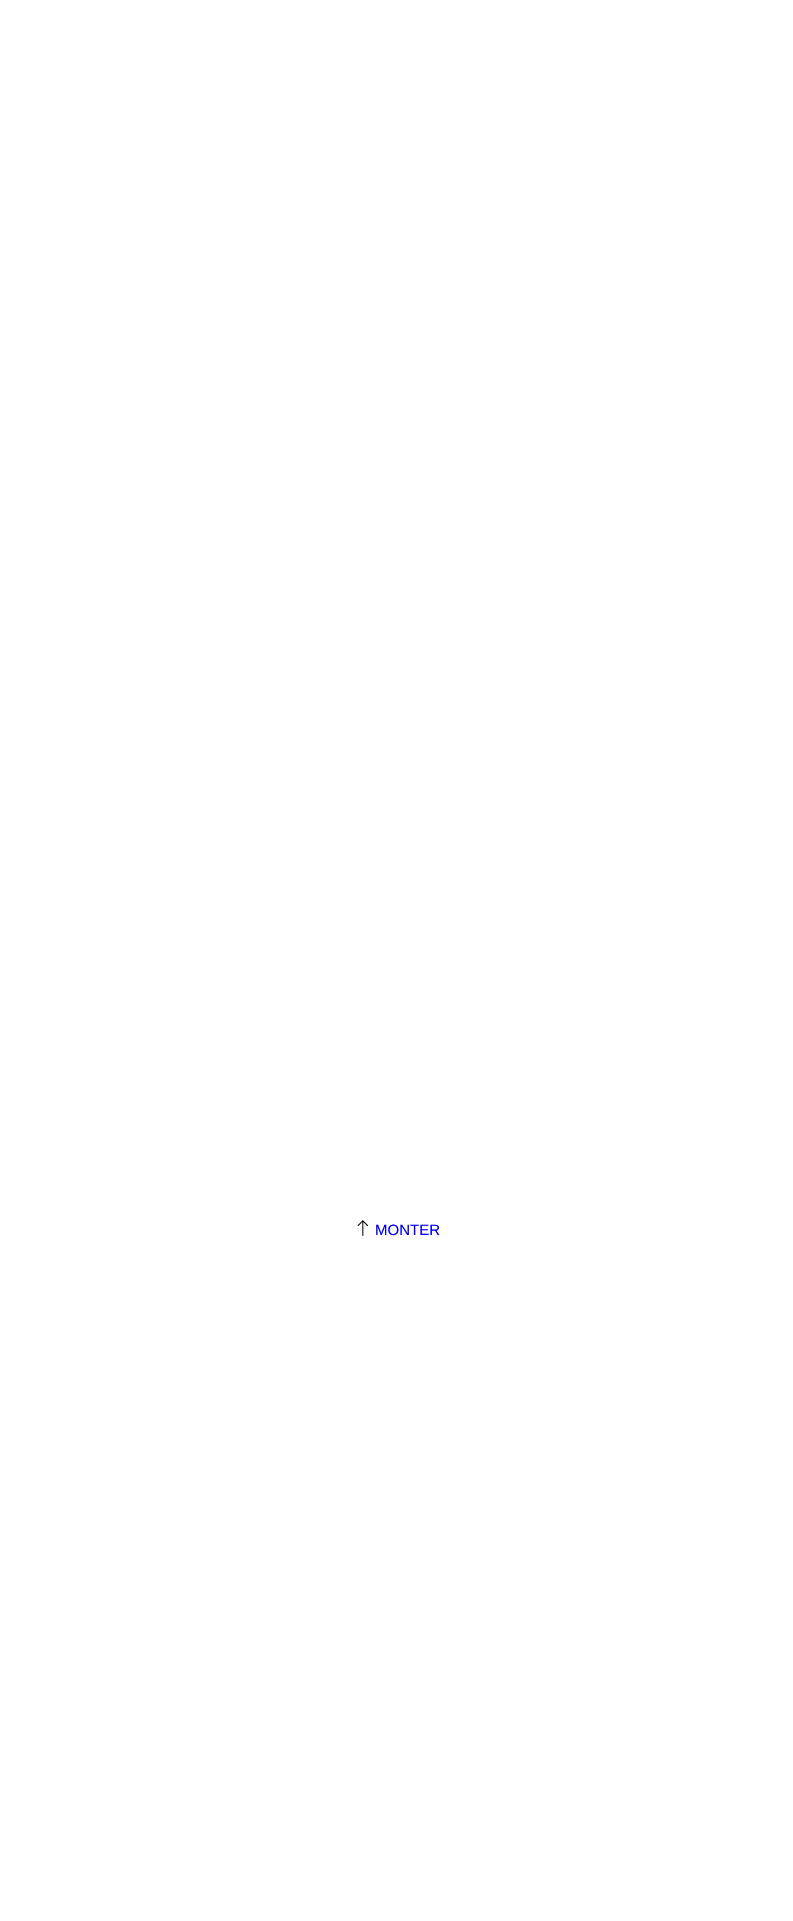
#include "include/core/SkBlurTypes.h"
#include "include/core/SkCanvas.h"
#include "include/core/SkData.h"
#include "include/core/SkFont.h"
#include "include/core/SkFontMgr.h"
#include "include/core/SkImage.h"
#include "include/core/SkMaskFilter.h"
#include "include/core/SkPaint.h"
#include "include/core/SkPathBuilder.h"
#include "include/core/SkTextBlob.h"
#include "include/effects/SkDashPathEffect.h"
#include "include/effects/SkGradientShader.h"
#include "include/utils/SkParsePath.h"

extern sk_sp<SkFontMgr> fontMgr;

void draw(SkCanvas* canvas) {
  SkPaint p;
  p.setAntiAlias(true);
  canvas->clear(SK_ColorWHITE);
  canvas->drawImageRect(SkImages::DeferredFromEncodedData(SkData::MakeFromFileName("images/1.png")), SkRect::MakeLTRB(357, 1220, 368, 1236), SkSamplingOptions());
  SkFont font1(fontMgr->matchFamilyStyle("Arimo", SkFontStyle::Normal()), 15);
  font1.setSubpixel(true);
  p.setColor(SkColorSetRGB(0, 0, 238));
  canvas->drawString("MONTER", 375, 1235, font1, p);
}
